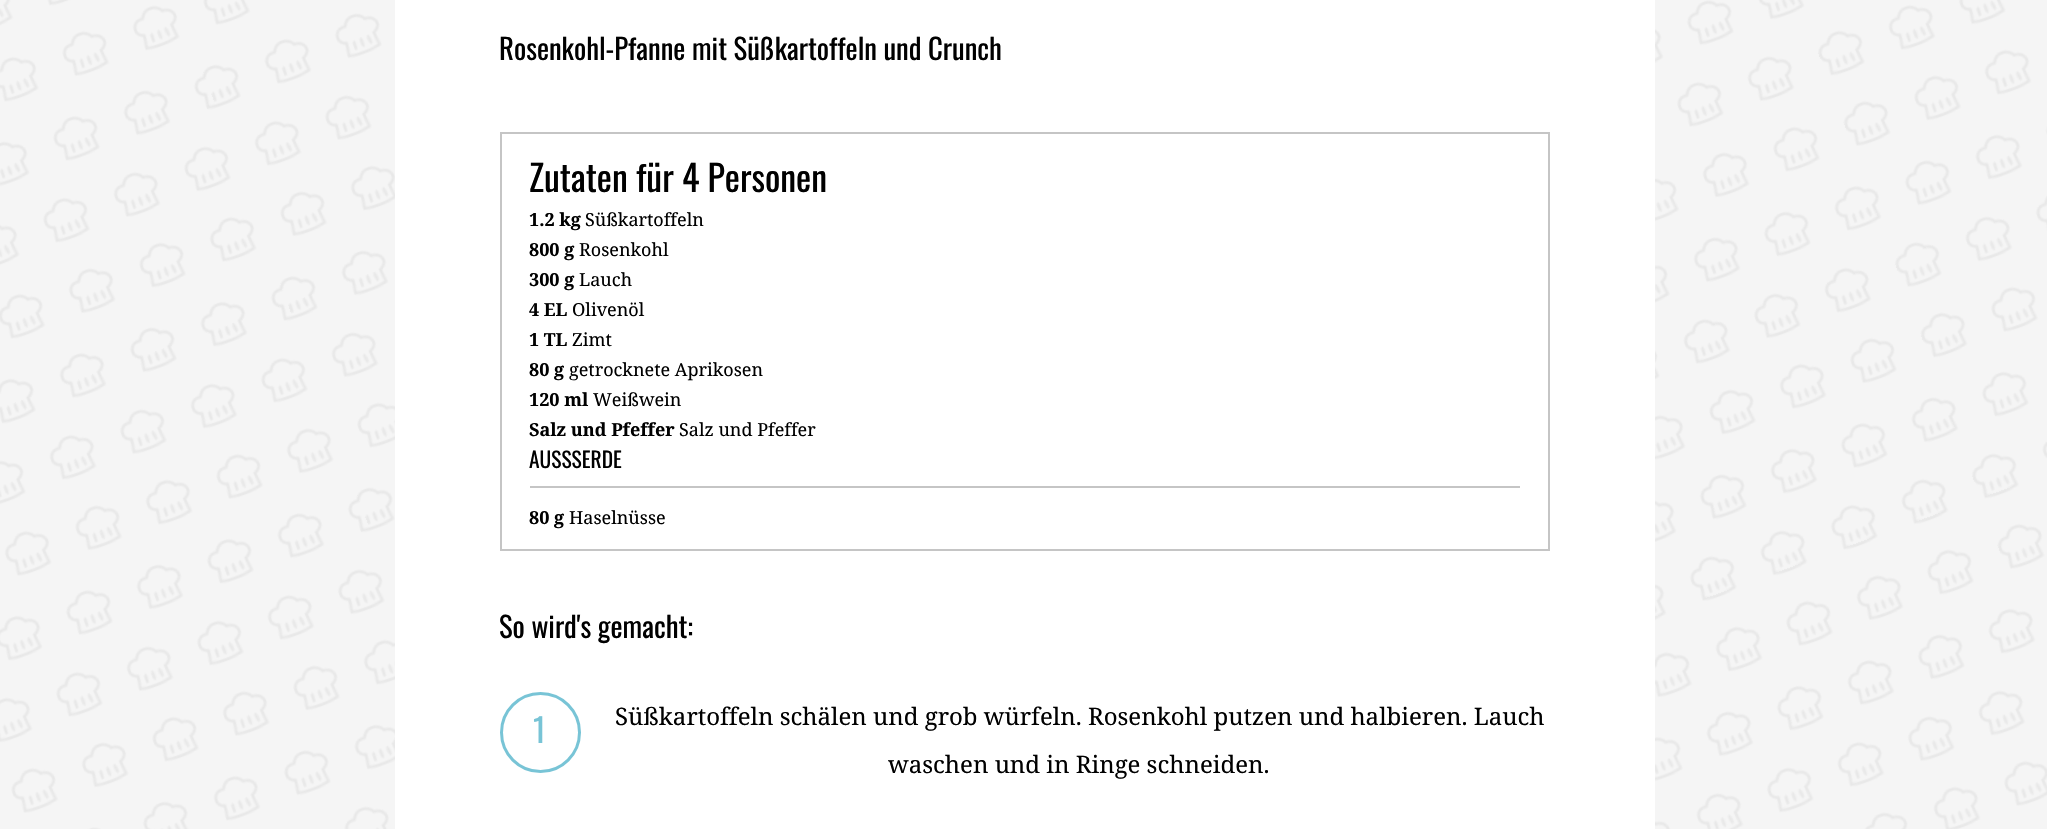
#include "include/core/SkBlurTypes.h"
#include "include/core/SkCanvas.h"
#include "include/core/SkData.h"
#include "include/core/SkFont.h"
#include "include/core/SkFontMgr.h"
#include "include/core/SkImage.h"
#include "include/core/SkMaskFilter.h"
#include "include/core/SkPaint.h"
#include "include/core/SkPathBuilder.h"
#include "include/core/SkTextBlob.h"
#include "include/effects/SkDashPathEffect.h"
#include "include/effects/SkGradientShader.h"
#include "include/utils/SkParsePath.h"

extern sk_sp<SkFontMgr> fontMgr;

void draw(SkCanvas* canvas) {
  SkPaint p;
  p.setAntiAlias(true);
  canvas->clear(SkColorSetRGB(245, 245, 245));
  canvas->drawImageRect(SkImages::DeferredFromEncodedData(SkData::MakeFromFileName("images/1.png")), SkRect::MakeLTRB(0, 0, 2047, 829), SkSamplingOptions());
  p.setColor(SK_ColorWHITE);
  canvas->drawRect(SkRect::MakeLTRB(395, 0, 1655, 829), p);
  p.setStyle(SkPaint::kStroke_Style);
  p.setStrokeWidth(2);
  p.setColor(SkColorSetRGB(197, 197, 197));
  canvas->drawRect(SkRect::MakeLTRB(501, 133, 1549, 550), p);
  p.setStyle(SkPaint::kFill_Style);
  canvas->drawRect(SkRect::MakeLTRB(530, 486, 1520, 488), p);
  p.setStyle(SkPaint::kStroke_Style);
  p.setStrokeWidth(3);
  p.setColor(SkColorSetRGB(120, 196, 214));
  canvas->drawCircle(540.5f, 732.5f, 39, p);
  SkFont font1(fontMgr->matchFamilyStyle("Oswald", SkFontStyle::Normal()), 28.75f);
  font1.setSubpixel(true);
  p.setStyle(SkPaint::kFill_Style);
  p.setColor(SK_ColorBLACK);
  canvas->drawString("Rosenkohl-Pfanne mit Süßkartoffeln und Crunch", 499, 60, font1, p);
  SkFont font2(fontMgr->matchFamilyStyle("Oswald", SkFontStyle::Normal()), 36);
  font2.setSubpixel(true);
  canvas->drawString("Zutaten für 4 Personen", 529, 192, font2, p);
  SkFont font3(fontMgr->matchFamilyStyle("Noto Serif", SkFontStyle::Bold()), 18);
  font3.setSubpixel(true);
  canvas->drawString("1.2 kg", 529, 226, font3, p);
  SkFont font4(fontMgr->matchFamilyStyle("Noto Serif", SkFontStyle::Normal()), 18);
  font4.setSubpixel(true);
  canvas->drawString("Süßkartoffeln", 585, 226, font4, p);
  canvas->drawString("800 g", 529, 256, font3, p);
  canvas->drawString("Rosenkohl", 579, 256, font4, p);
  canvas->drawString("300 g", 529, 286, font3, p);
  canvas->drawString("Lauch", 579, 286, font4, p);
  canvas->drawString("4 EL", 529, 316, font3, p);
  canvas->drawString("Olivenöl", 572, 316, font4, p);
  canvas->drawString("1 TL", 529, 346, font3, p);
  canvas->drawString("Zimt", 572, 346, font4, p);
  canvas->drawString("80 g", 529, 376, font3, p);
  canvas->drawString("getrocknete Aprikosen", 569, 376, font4, p);
  canvas->drawString("120 ml", 529, 406, font3, p);
  canvas->drawString("Weißwein", 593, 406, font4, p);
  canvas->drawString("Salz und Pfeffer", 529, 436, font3, p);
  canvas->drawString("Salz und Pfeffer", 679, 436, font4, p);
  SkFont font5(fontMgr->matchFamilyStyle("Oswald", SkFontStyle::Normal()), 21.5f);
  font5.setSubpixel(true);
  canvas->drawString("AUSSSERDE", 529, 468, font5, p);
  canvas->drawString("80 g", 529, 524, font3, p);
  canvas->drawString("Haselnüsse", 569, 524, font4, p);
  canvas->drawString("So wird's gemacht:", 499, 638, font1, p);
  SkFont font6(fontMgr->matchFamilyStyle("Oswald", SkFontStyle::Normal()), 33);
  font6.setSubpixel(true);
  p.setColor(SkColorSetRGB(120, 196, 214));
  canvas->drawString("1", 533, 743, font6, p);
  SkFont font7(fontMgr->matchFamilyStyle("Noto Serif", SkFontStyle::Normal()), 24);
  font7.setSubpixel(true);
  p.setColor(SK_ColorBLACK);
  canvas->drawString("Süßkartoffeln schälen und grob würfeln. Rosenkohl putzen und halbieren. Lauch", 615, 725, font7, p);
  canvas->drawString("waschen und in Ringe schneiden.", 888, 773, font7, p);
}
